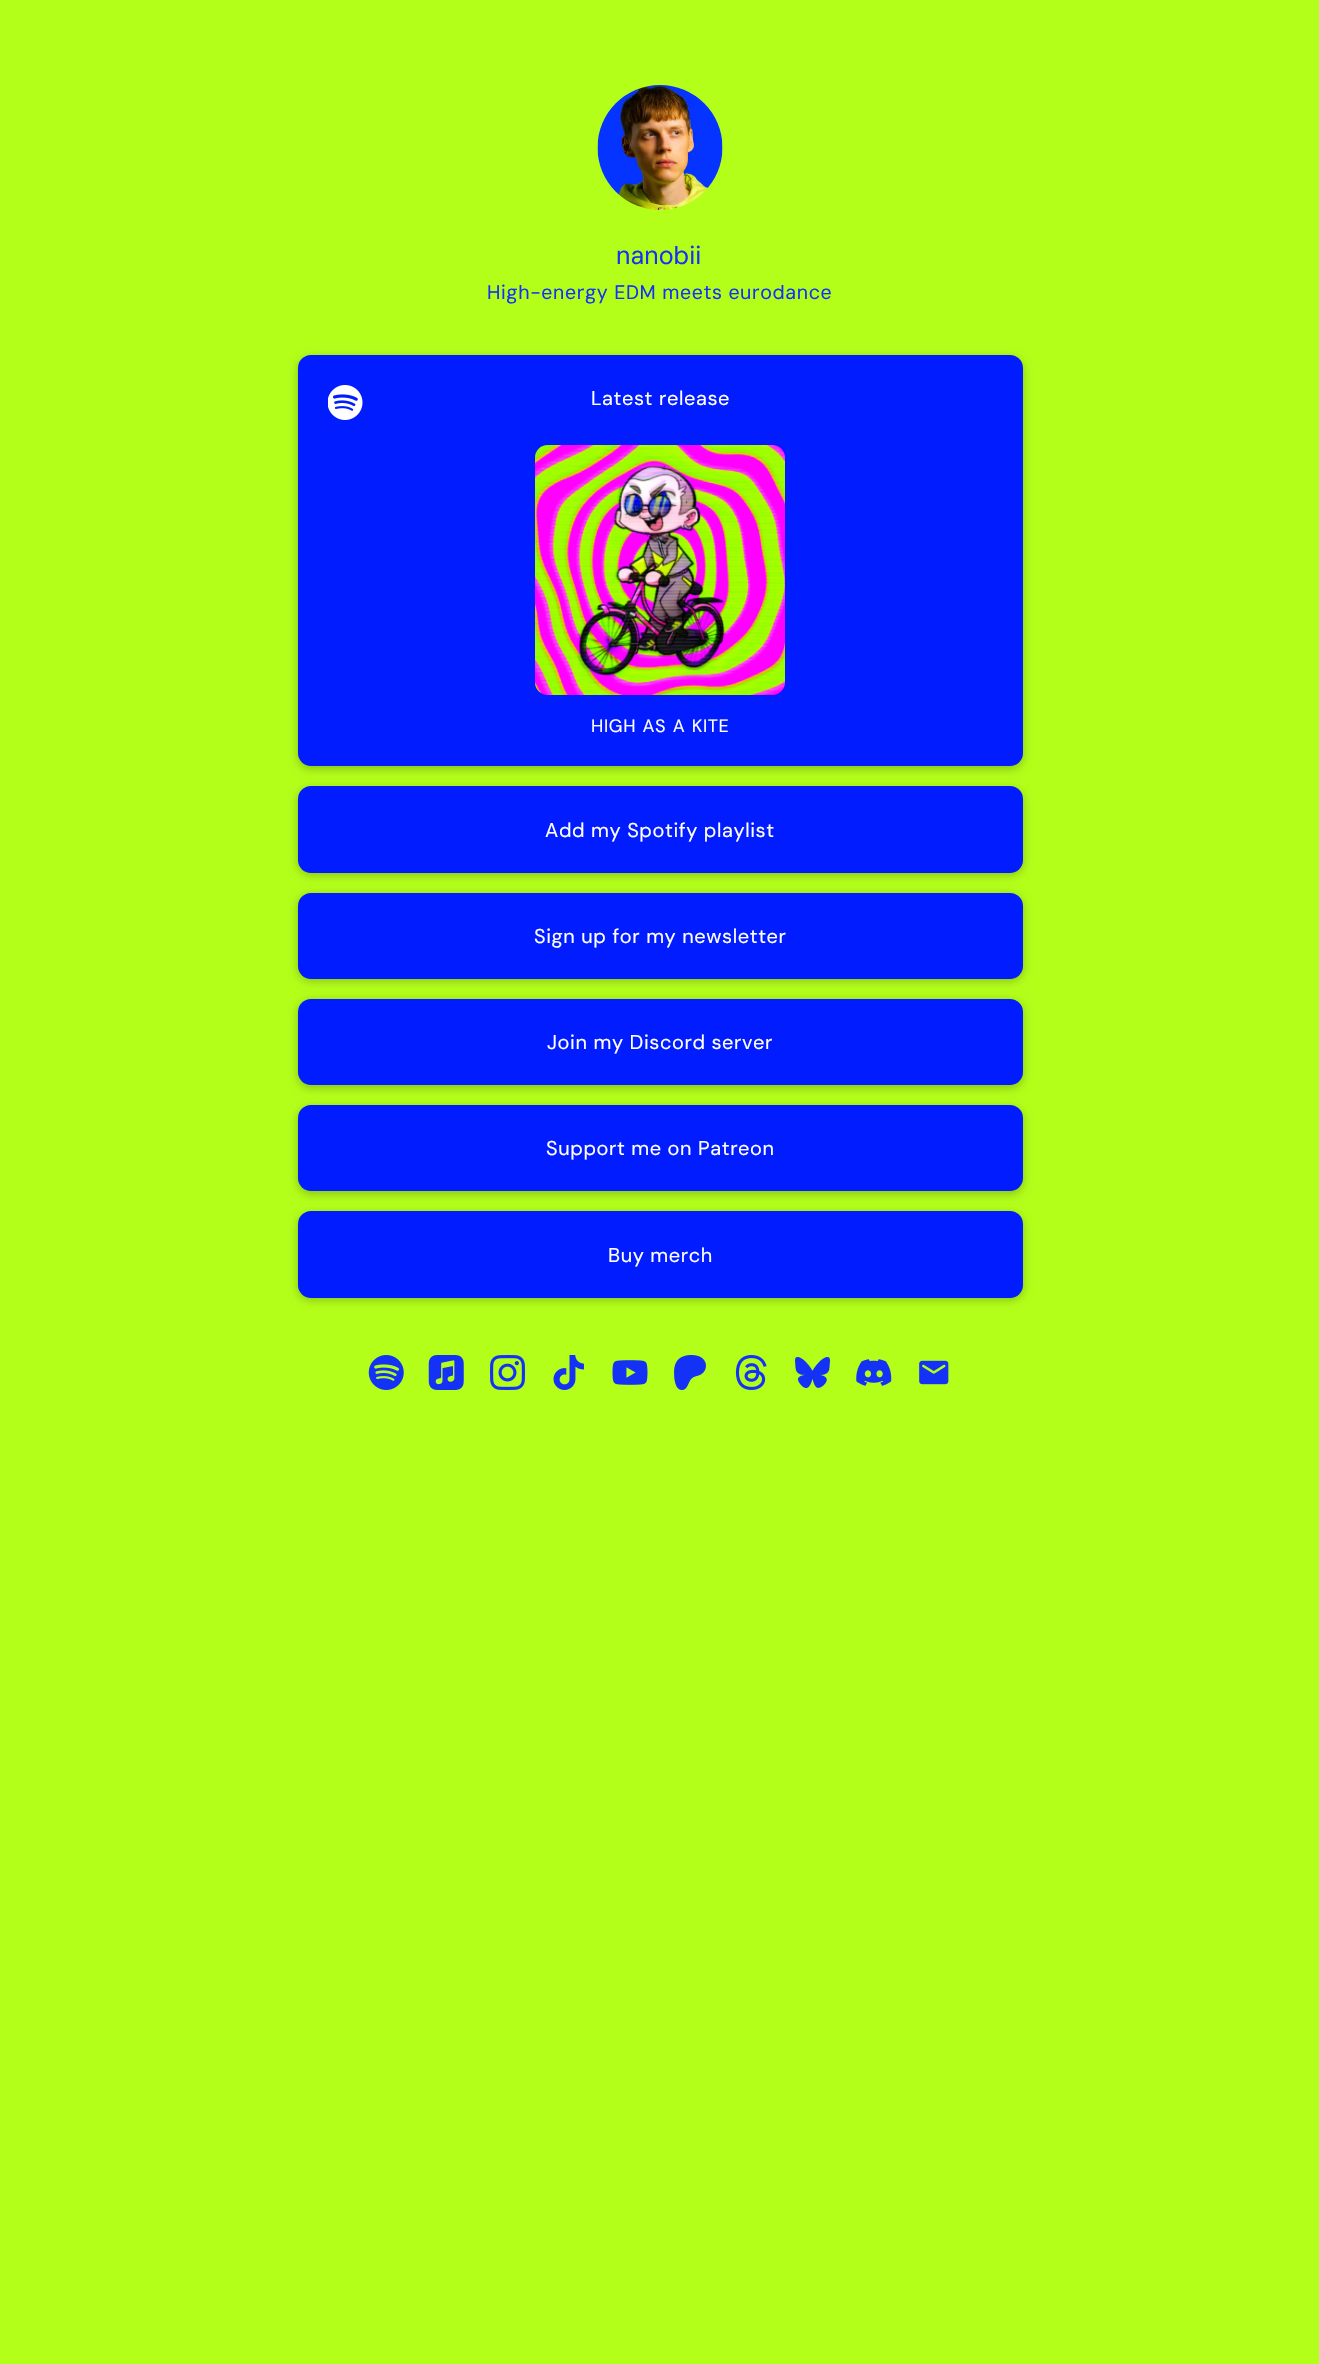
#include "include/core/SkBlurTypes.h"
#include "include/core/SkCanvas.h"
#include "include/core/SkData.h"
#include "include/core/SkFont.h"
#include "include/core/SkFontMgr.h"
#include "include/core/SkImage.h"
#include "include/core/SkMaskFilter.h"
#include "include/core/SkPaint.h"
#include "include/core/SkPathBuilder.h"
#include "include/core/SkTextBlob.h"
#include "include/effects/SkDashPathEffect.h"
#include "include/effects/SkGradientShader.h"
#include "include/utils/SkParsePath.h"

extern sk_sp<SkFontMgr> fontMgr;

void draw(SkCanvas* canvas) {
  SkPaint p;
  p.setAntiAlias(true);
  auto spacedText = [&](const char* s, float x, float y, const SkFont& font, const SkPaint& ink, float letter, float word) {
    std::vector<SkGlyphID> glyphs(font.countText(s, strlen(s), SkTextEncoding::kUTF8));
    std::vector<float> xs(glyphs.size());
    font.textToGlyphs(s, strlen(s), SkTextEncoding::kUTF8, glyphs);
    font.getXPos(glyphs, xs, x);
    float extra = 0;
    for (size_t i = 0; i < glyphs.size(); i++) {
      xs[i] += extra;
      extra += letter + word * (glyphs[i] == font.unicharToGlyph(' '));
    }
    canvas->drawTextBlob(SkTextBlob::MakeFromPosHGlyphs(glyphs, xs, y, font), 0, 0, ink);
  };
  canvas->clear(SkColorSetRGB(179, 255, 26));
  canvas->drawImageRect(SkImages::DeferredFromEncodedData(SkData::MakeFromFileName("images/1.png")), SkRect::MakeLTRB(597, 85, 723, 210), SkSamplingOptions());
  p.setColor(SkColorSetARGB(61, 0, 0, 0));
  p.setMaskFilter(SkMaskFilter::MakeBlur(kNormal_SkBlurStyle, 5));
  canvas->drawRoundRect(SkRect::MakeLTRB(298, 358, 1023, 769), 13, 13, p);
  p.setMaskFilter(nullptr);
  p.setColor(SkColorSetRGB(0, 28, 255));
  canvas->drawRoundRect(SkRect::MakeLTRB(298, 355, 1023, 766), 13, 13, p);
  canvas->drawImageRect(SkImages::DeferredFromEncodedData(SkData::MakeFromFileName("images/2.png")), SkRect::MakeLTRB(328, 385, 363, 420), SkSamplingOptions());
  canvas->drawImageRect(SkImages::DeferredFromEncodedData(SkData::MakeFromFileName("images/3.png")), SkRect::MakeLTRB(535, 445, 785, 695), SkSamplingOptions());
  p.setColor(SkColorSetARGB(61, 0, 0, 0));
  p.setMaskFilter(SkMaskFilter::MakeBlur(kNormal_SkBlurStyle, 5));
  canvas->drawRoundRect(SkRect::MakeLTRB(298, 789, 1023, 875), 13, 13, p);
  p.setMaskFilter(nullptr);
  p.setColor(SkColorSetRGB(0, 28, 255));
  canvas->drawRoundRect(SkRect::MakeLTRB(298, 786, 1023, 873), 13, 13, p);
  p.setColor(SkColorSetARGB(61, 0, 0, 0));
  p.setMaskFilter(SkMaskFilter::MakeBlur(kNormal_SkBlurStyle, 5));
  canvas->drawRoundRect(SkRect::MakeLTRB(298, 895, 1023, 981), 13, 13, p);
  p.setMaskFilter(nullptr);
  p.setColor(SkColorSetRGB(0, 28, 255));
  canvas->drawRoundRect(SkRect::MakeLTRB(298, 893, 1023, 979), 13, 13, p);
  p.setColor(SkColorSetARGB(61, 0, 0, 0));
  p.setMaskFilter(SkMaskFilter::MakeBlur(kNormal_SkBlurStyle, 5));
  canvas->drawRoundRect(SkRect::MakeLTRB(298, 1001, 1023, 1088), 13, 13, p);
  p.setMaskFilter(nullptr);
  p.setColor(SkColorSetRGB(0, 28, 255));
  canvas->drawRoundRect(SkRect::MakeLTRB(298, 999, 1023, 1085), 13, 13, p);
  p.setColor(SkColorSetARGB(61, 0, 0, 0));
  p.setMaskFilter(SkMaskFilter::MakeBlur(kNormal_SkBlurStyle, 5));
  canvas->drawRoundRect(SkRect::MakeLTRB(298, 1108, 1023, 1194), 13, 13, p);
  p.setMaskFilter(nullptr);
  p.setColor(SkColorSetRGB(0, 28, 255));
  canvas->drawRoundRect(SkRect::MakeLTRB(298, 1105, 1023, 1191), 13, 13, p);
  p.setColor(SkColorSetARGB(61, 0, 0, 0));
  p.setMaskFilter(SkMaskFilter::MakeBlur(kNormal_SkBlurStyle, 5));
  canvas->drawRoundRect(SkRect::MakeLTRB(298, 1214, 1023, 1300), 13, 13, p);
  p.setMaskFilter(nullptr);
  p.setColor(SkColorSetRGB(0, 28, 255));
  canvas->drawRoundRect(SkRect::MakeLTRB(298, 1211, 1023, 1298), 13, 13, p);
  canvas->drawImageRect(SkImages::DeferredFromEncodedData(SkData::MakeFromFileName("images/4.png")), SkRect::MakeLTRB(368, 1355, 404, 1390), SkSamplingOptions());
  canvas->drawImageRect(SkImages::DeferredFromEncodedData(SkData::MakeFromFileName("images/5.png")), SkRect::MakeLTRB(428, 1355, 464, 1390), SkSamplingOptions());
  canvas->drawImageRect(SkImages::DeferredFromEncodedData(SkData::MakeFromFileName("images/6.png")), SkRect::MakeLTRB(490, 1355, 525, 1390), SkSamplingOptions());
  canvas->drawImageRect(SkImages::DeferredFromEncodedData(SkData::MakeFromFileName("images/7.png")), SkRect::MakeLTRB(553, 1355, 584, 1390), SkSamplingOptions());
  canvas->drawImageRect(SkImages::DeferredFromEncodedData(SkData::MakeFromFileName("images/8.png")), SkRect::MakeLTRB(612, 1360, 648, 1385), SkSamplingOptions());
  canvas->drawImageRect(SkImages::DeferredFromEncodedData(SkData::MakeFromFileName("images/9.png")), SkRect::MakeLTRB(674, 1355, 706, 1390), SkSamplingOptions());
  canvas->drawImageRect(SkImages::DeferredFromEncodedData(SkData::MakeFromFileName("images/10.png")), SkRect::MakeLTRB(735, 1355, 767, 1390), SkSamplingOptions());
  canvas->drawImageRect(SkImages::DeferredFromEncodedData(SkData::MakeFromFileName("images/11.png")), SkRect::MakeLTRB(795, 1357, 830, 1388), SkSamplingOptions());
  canvas->drawImageRect(SkImages::DeferredFromEncodedData(SkData::MakeFromFileName("images/12.png")), SkRect::MakeLTRB(856, 1359, 892, 1386), SkSamplingOptions());
  canvas->drawImageRect(SkImages::DeferredFromEncodedData(SkData::MakeFromFileName("images/13.png")), SkRect::MakeLTRB(919, 1360, 949, 1385), SkSamplingOptions());
  SkFont font1(fontMgr->matchFamilyStyle("DM Sans", SkFontStyle::Normal()), 25);
  font1.setSubpixel(true);
  p.setColor(SkColorSetRGB(20, 50, 245));
  canvas->drawString("nanobii", 616, 264, font1, p);
  SkFont font2(fontMgr->matchFamilyStyle("DM Sans", SkFontStyle::Normal()), 19.6f);
  font2.setSubpixel(true);
  spacedText("High-energy EDM meets eurodance", 487, 299, font2, p, 0.6f, 0);
  SkFont font3(fontMgr->matchFamilyStyle("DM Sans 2", SkFontStyle::Normal()), 20);
  font3.setSubpixel(true);
  p.setColor(SK_ColorWHITE);
  spacedText("Latest release", 591, 405, font3, p, 0.6f, 0);
  SkFont font4(fontMgr->matchFamilyStyle("DM Sans", SkFontStyle::Normal()), 18);
  font4.setSubpixel(true);
  spacedText("HIGH AS A KITE", 591, 732, font4, p, 0.6f, 1);
  spacedText("Add my Spotify playlist", 545, 837, font3, p, 0.6f, 0);
  spacedText("Sign up for my newsletter", 534, 943, font3, p, 0.6f, 0);
  spacedText("Join my Discord server", 547, 1049, font3, p, 0.6f, 0);
  spacedText("Support me on Patreon", 546, 1155, font3, p, 0.6f, 0);
  spacedText("Buy merch", 608, 1262, font3, p, 0.6f, 0);
}
